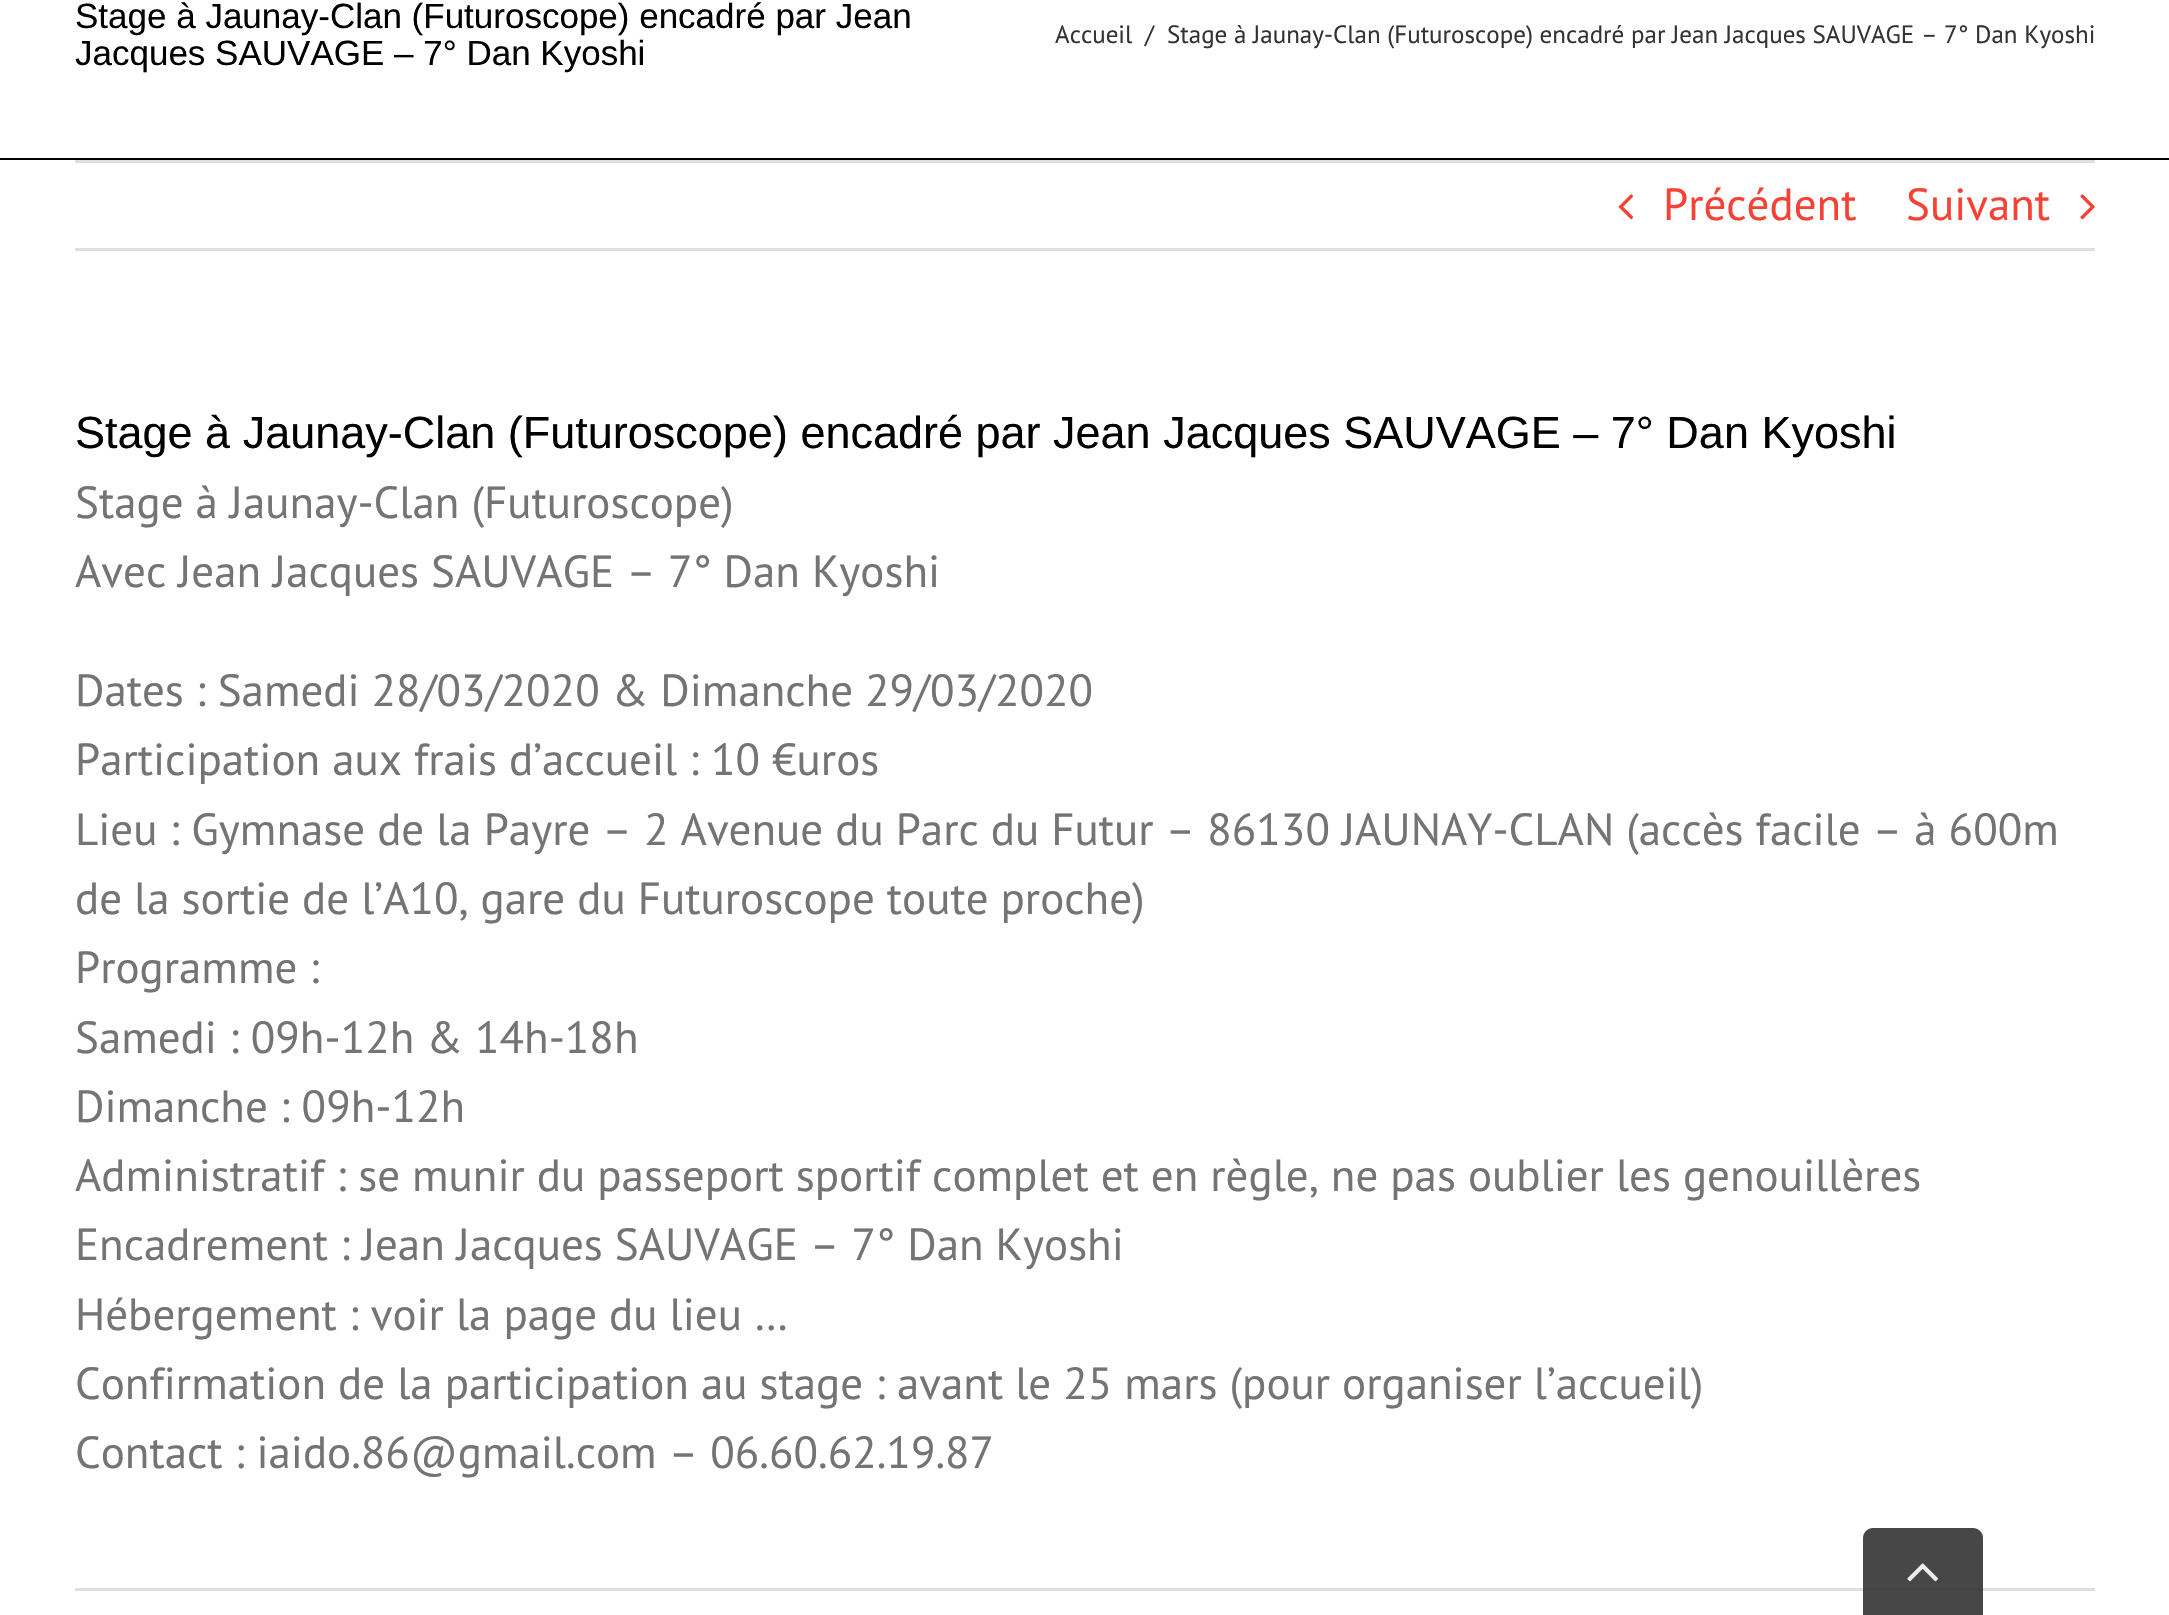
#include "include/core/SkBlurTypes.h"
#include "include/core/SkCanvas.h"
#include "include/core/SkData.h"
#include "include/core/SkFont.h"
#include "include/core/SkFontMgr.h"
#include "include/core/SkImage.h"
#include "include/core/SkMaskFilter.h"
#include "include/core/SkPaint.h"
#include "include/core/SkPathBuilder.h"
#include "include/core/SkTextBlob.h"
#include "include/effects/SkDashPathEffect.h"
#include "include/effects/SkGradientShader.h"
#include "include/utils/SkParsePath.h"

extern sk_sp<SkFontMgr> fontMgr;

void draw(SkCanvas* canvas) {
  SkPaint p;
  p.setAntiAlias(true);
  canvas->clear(SK_ColorWHITE);
  p.setColor(SK_ColorBLACK);
  canvas->drawRect(SkRect::MakeLTRB(0, 158, 2169, 160), p);
  p.setColor(SkColorSetRGB(224, 222, 222));
  canvas->drawRect(SkRect::MakeLTRB(75, 160, 2095, 163), p);
  canvas->drawRect(SkRect::MakeLTRB(75, 248, 2095, 251), p);
  canvas->drawImageRect(SkImages::DeferredFromEncodedData(SkData::MakeFromFileName("images/1.png")), SkRect::MakeLTRB(1618, 194, 1634, 220), SkSamplingOptions());
  canvas->drawImageRect(SkImages::DeferredFromEncodedData(SkData::MakeFromFileName("images/2.png")), SkRect::MakeLTRB(2080, 194, 2095, 220), SkSamplingOptions());
  canvas->drawRect(SkRect::MakeLTRB(75, 1588, 2095, 1591), p);
  p.setColor(SkColorSetARGB(230, 51, 51, 51));
  canvas->drawPath(SkPathBuilder().moveTo(1873, 1528).lineTo(1973, 1528).cubicTo(1978.5f, 1528, 1983, 1532.5f, 1983, 1538).lineTo(1983, 1615).lineTo(1863, 1615).lineTo(1863, 1538).cubicTo(1863, 1532.5f, 1867.5f, 1528, 1873, 1528).close().detach(), p);
  canvas->drawImageRect(SkImages::DeferredFromEncodedData(SkData::MakeFromFileName("images/3.png")), SkRect::MakeLTRB(1907, 1563, 1938, 1582), SkSamplingOptions());
  SkFont font1(fontMgr->matchFamilyStyle("Liberation Sans", SkFontStyle::Normal()), 35);
  font1.setSubpixel(true);
  p.setColor(SK_ColorBLACK);
  canvas->drawString("Stage à Jaunay-Clan (Futuroscope) encadré par Jean", 75, 28, font1, p);
  canvas->drawString("Jacques SAUVAGE – 7° Dan Kyoshi", 75, 65, font1, p);
  SkFont font2(fontMgr->matchFamilyStyle("PT Sans", SkFontStyle::Normal()), 25);
  font2.setSubpixel(true);
  p.setColor(SkColorSetRGB(51, 51, 51));
  canvas->drawString("Accueil", 1055, 43, font2, p);
  canvas->drawString("/", 1145, 43, font2, p);
  canvas->drawString("Stage à Jaunay-Clan (Futuroscope) encadré par Jean Jacques SAUVAGE – 7° Dan Kyoshi", 1167, 43, font2, p);
  SkFont font3(fontMgr->matchFamilyStyle("PT Sans", SkFontStyle::Normal()), 45);
  font3.setSubpixel(true);
  p.setColor(SkColorSetRGB(244, 67, 54));
  canvas->drawString("Précédent", 1663, 220, font3, p);
  canvas->drawString("Suivant", 1906, 220, font3, p);
  SkFont font4(fontMgr->matchFamilyStyle("Liberation Sans", SkFontStyle::Normal()), 45);
  font4.setSubpixel(true);
  p.setColor(SK_ColorBLACK);
  canvas->drawString("Stage à Jaunay-Clan (Futuroscope) encadré par Jean Jacques SAUVAGE – 7° Dan Kyoshi", 75, 448, font4, p);
  p.setColor(SkColorSetRGB(116, 116, 116));
  canvas->drawString("Stage à Jaunay-Clan (Futuroscope)", 75, 518, font3, p);
  canvas->drawString("Avec Jean Jacques SAUVAGE – 7° Dan Kyoshi", 75, 587, font3, p);
  canvas->drawString("Dates : Samedi 28/03/2020 & Dimanche 29/03/2020", 75, 706, font3, p);
  canvas->drawString("Participation aux frais d’accueil : 10 €uros", 75, 775, font3, p);
  canvas->drawString("Lieu : Gymnase de la Payre – 2 Avenue du Parc du Futur – 86130 JAUNAY-CLAN (accès facile – à 600m", 75, 845, font3, p);
  canvas->drawString("de la sortie de l’A10, gare du Futuroscope toute proche)", 75, 914, font3, p);
  canvas->drawString("Programme :", 75, 983, font3, p);
  canvas->drawString("Samedi : 09h-12h & 14h-18h", 75, 1053, font3, p);
  canvas->drawString("Dimanche : 09h-12h", 75, 1122, font3, p);
  canvas->drawString("Administratif : se munir du passeport sportif complet et en règle, ne pas oublier les genouillères", 75, 1191, font3, p);
  canvas->drawString("Encadrement : Jean Jacques SAUVAGE – 7° Dan Kyoshi", 75, 1260, font3, p);
  canvas->drawString("Hébergement : voir la page du lieu …", 75, 1330, font3, p);
  canvas->drawString("Confirmation de la participation au stage : avant le 25 mars (pour organiser l’accueil)", 75, 1399, font3, p);
  canvas->drawString("Contact : iaido.86@gmail.com – 06.60.62.19.87", 75, 1468, font3, p);
}
